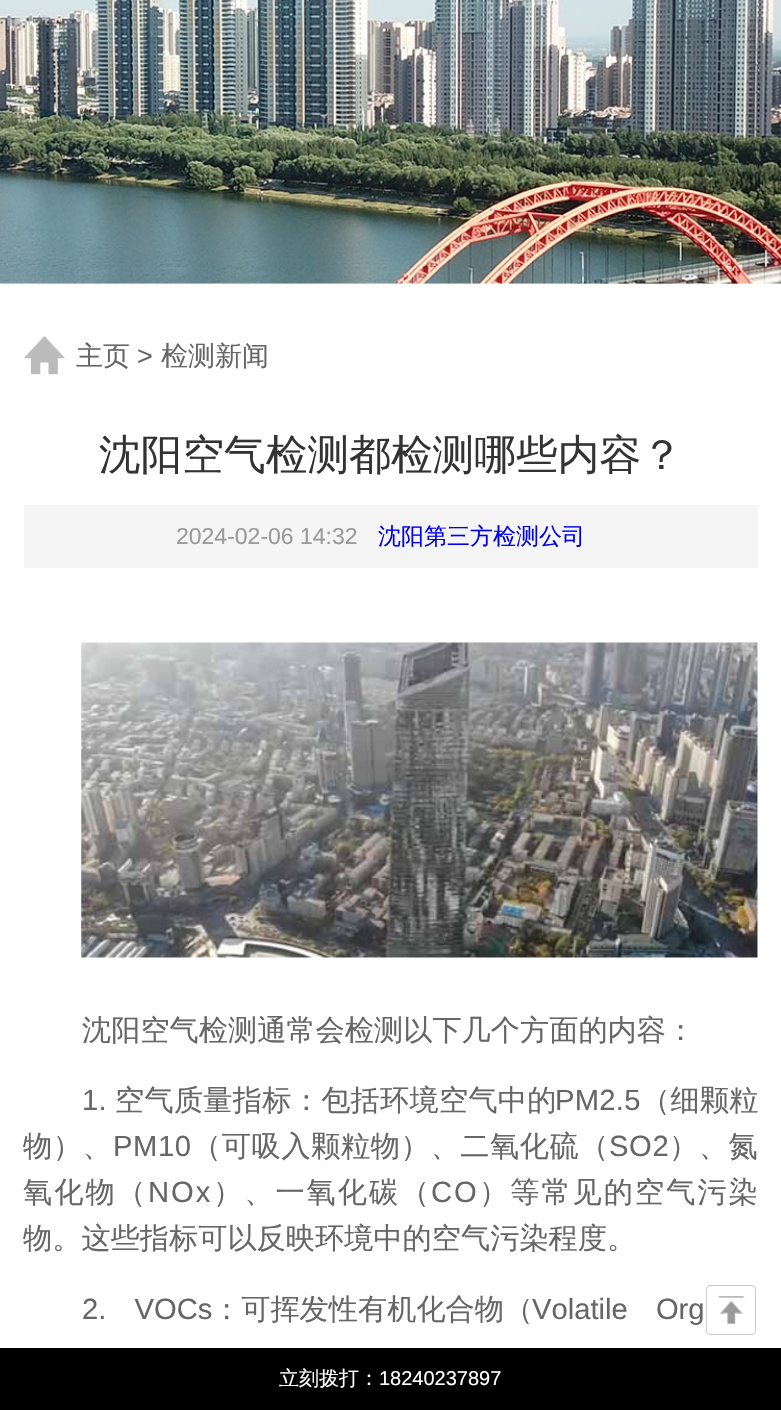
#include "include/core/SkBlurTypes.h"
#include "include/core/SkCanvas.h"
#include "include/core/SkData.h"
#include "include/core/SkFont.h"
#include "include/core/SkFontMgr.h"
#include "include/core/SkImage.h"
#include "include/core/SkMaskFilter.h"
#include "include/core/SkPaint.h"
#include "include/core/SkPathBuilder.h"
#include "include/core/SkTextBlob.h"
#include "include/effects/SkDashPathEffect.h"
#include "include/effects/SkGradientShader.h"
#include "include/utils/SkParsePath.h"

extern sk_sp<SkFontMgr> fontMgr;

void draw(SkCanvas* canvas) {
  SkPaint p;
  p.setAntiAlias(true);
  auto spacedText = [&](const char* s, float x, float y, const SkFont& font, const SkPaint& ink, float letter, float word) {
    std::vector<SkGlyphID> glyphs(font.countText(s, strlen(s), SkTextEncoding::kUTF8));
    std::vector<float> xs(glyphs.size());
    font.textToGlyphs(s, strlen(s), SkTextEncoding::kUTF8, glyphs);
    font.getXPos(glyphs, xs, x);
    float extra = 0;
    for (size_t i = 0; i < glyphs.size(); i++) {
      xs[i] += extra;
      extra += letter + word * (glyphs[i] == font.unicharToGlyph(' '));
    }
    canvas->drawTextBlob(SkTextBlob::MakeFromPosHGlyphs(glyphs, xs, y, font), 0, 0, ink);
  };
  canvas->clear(SK_ColorWHITE);
  canvas->drawImageRect(SkImages::DeferredFromEncodedData(SkData::MakeFromFileName("images/1.png")), SkRect::MakeLTRB(0, 0, 781, 284), SkSamplingOptions());
  canvas->drawImageRect(SkImages::DeferredFromEncodedData(SkData::MakeFromFileName("images/2.png")), SkRect::MakeLTRB(24, 336, 65, 375), SkSamplingOptions());
  p.setColor(SkColorSetRGB(245, 245, 245));
  canvas->drawRect(SkRect::MakeLTRB(24, 505, 758, 568), p);
  canvas->drawImageRect(SkImages::DeferredFromEncodedData(SkData::MakeFromFileName("images/3.png")), SkRect::MakeLTRB(81, 642, 758, 958), SkSamplingOptions());
  canvas->drawImageRect(SkImages::DeferredFromEncodedData(SkData::MakeFromFileName("images/4.png")), SkRect::MakeLTRB(718, 1296, 745, 1324), SkSamplingOptions());
  p.setStyle(SkPaint::kStroke_Style);
  p.setStrokeWidth(1);
  p.setColor(SkColorSetRGB(204, 204, 204));
  canvas->drawRoundRect(SkRect::MakeLTRB(706.5f, 1285.5f, 755.5f, 1334.5f), 3.5f, 3.5f, p);
  p.setStyle(SkPaint::kFill_Style);
  p.setColor(SK_ColorBLACK);
  canvas->drawRect(SkRect::MakeLTRB(0, 1348, 781, 1410), p);
  SkFont font1(fontMgr->matchFamilyStyle("WenQuanYi Zen Hei", SkFontStyle(500, SkFontStyle::kNormal_Width, SkFontStyle::kUpright_Slant)), 27);
  font1.setSubpixel(true);
  p.setColor(SkColorSetRGB(102, 102, 102));
  canvas->drawString("主页", 76, 365, font1, p);
  SkFont font2(fontMgr->matchFamilyStyle("Liberation Sans", SkFontStyle::Normal()), 27);
  font2.setSubpixel(true);
  canvas->drawString(">", 137, 365, font2, p);
  canvas->drawString("检测新闻", 161, 365, font1, p);
  SkFont font3(fontMgr->matchFamilyStyle("WenQuanYi Zen Hei", SkFontStyle(500, SkFontStyle::kNormal_Width, SkFontStyle::kUpright_Slant)), 41.7f);
  font3.setSubpixel(true);
  p.setColor(SkColorSetRGB(51, 51, 51));
  canvas->drawString("沈阳空气检测都检测哪些内容？", 99, 469, font3, p);
  SkFont font4(fontMgr->matchFamilyStyle("Liberation Sans", SkFontStyle::Normal()), 23);
  font4.setSubpixel(true);
  p.setColor(SkColorSetRGB(153, 153, 153));
  canvas->drawString("2024-02-06 14:32", 176, 544, font4, p);
  SkFont font5(fontMgr->matchFamilyStyle("WenQuanYi Zen Hei", SkFontStyle(500, SkFontStyle::kNormal_Width, SkFontStyle::kUpright_Slant)), 23);
  font5.setSubpixel(true);
  p.setColor(SkColorSetRGB(0, 0, 238));
  canvas->drawString("沈阳第三方检测公司", 378, 544, font5, p);
  SkFont font6(fontMgr->matchFamilyStyle("WenQuanYi Zen Hei", SkFontStyle(500, SkFontStyle::kNormal_Width, SkFontStyle::kUpright_Slant)), 29.2f);
  font6.setSubpixel(true);
  p.setColor(SkColorSetRGB(102, 102, 102));
  canvas->drawString("沈阳空气检测通常会检测以下几个方面的内容：", 82, 1040, font6, p);
  SkFont font7(fontMgr->matchFamilyStyle("Liberation Sans", SkFontStyle::Normal()), 29.2f);
  font7.setSubpixel(true);
  spacedText("1.", 82, 1110, font7, p, 0.25f, 0);
  spacedText("空气质量指标：包括环境空气中的", 115, 1110, font6, p, 0.25f, 0);
  spacedText("PM2.5", 555, 1110, font7, p, 0.25f, 0);
  spacedText("（细颗粒", 641, 1110, font6, p, 0.25f, 0);
  spacedText("物）、", 23, 1156, font6, p, 0.6f, 0);
  spacedText("PM10", 113, 1156, font7, p, 0.6f, 0);
  spacedText("（可吸入颗粒物）、二氧化硫（", 192, 1156, font6, p, 0.6f, 0);
  spacedText("SO2", 609, 1156, font7, p, 0.6f, 0);
  spacedText("）、氮", 669, 1156, font6, p, 0.6f, 0);
  spacedText("氧化物（", 23, 1202, font6, p, 2, 0);
  spacedText("NOx", 148, 1202, font7, p, 2, 0);
  spacedText("）、一氧化碳（", 213, 1202, font6, p, 2, 0);
  spacedText("CO", 431, 1202, font7, p, 2, 0);
  spacedText("）等常见的空气污染", 479, 1202, font6, p, 2, 0);
  canvas->drawString("物。这些指标可以反映环境中的空气污染程度。", 23, 1248, font6, p);
  spacedText("2. VOCs", 82, 1319, font7, p, 0, 20);
  canvas->drawString("：可挥发性有机化合物（", 212, 1319, font6, p);
  spacedText("Volatile Org", 532, 1319, font7, p, 0, 20);
  SkFont font8(fontMgr->matchFamilyStyle("WenQuanYi Zen Hei", SkFontStyle(500, SkFontStyle::kNormal_Width, SkFontStyle::kUpright_Slant)), 20);
  font8.setSubpixel(true);
  p.setColor(SK_ColorWHITE);
  canvas->drawString("立刻拨打：", 279, 1385, font8, p);
  SkFont font9(fontMgr->matchFamilyStyle("Liberation Sans", SkFontStyle::Normal()), 20);
  font9.setSubpixel(true);
  canvas->drawString("18240237897", 379, 1385, font9, p);
}
